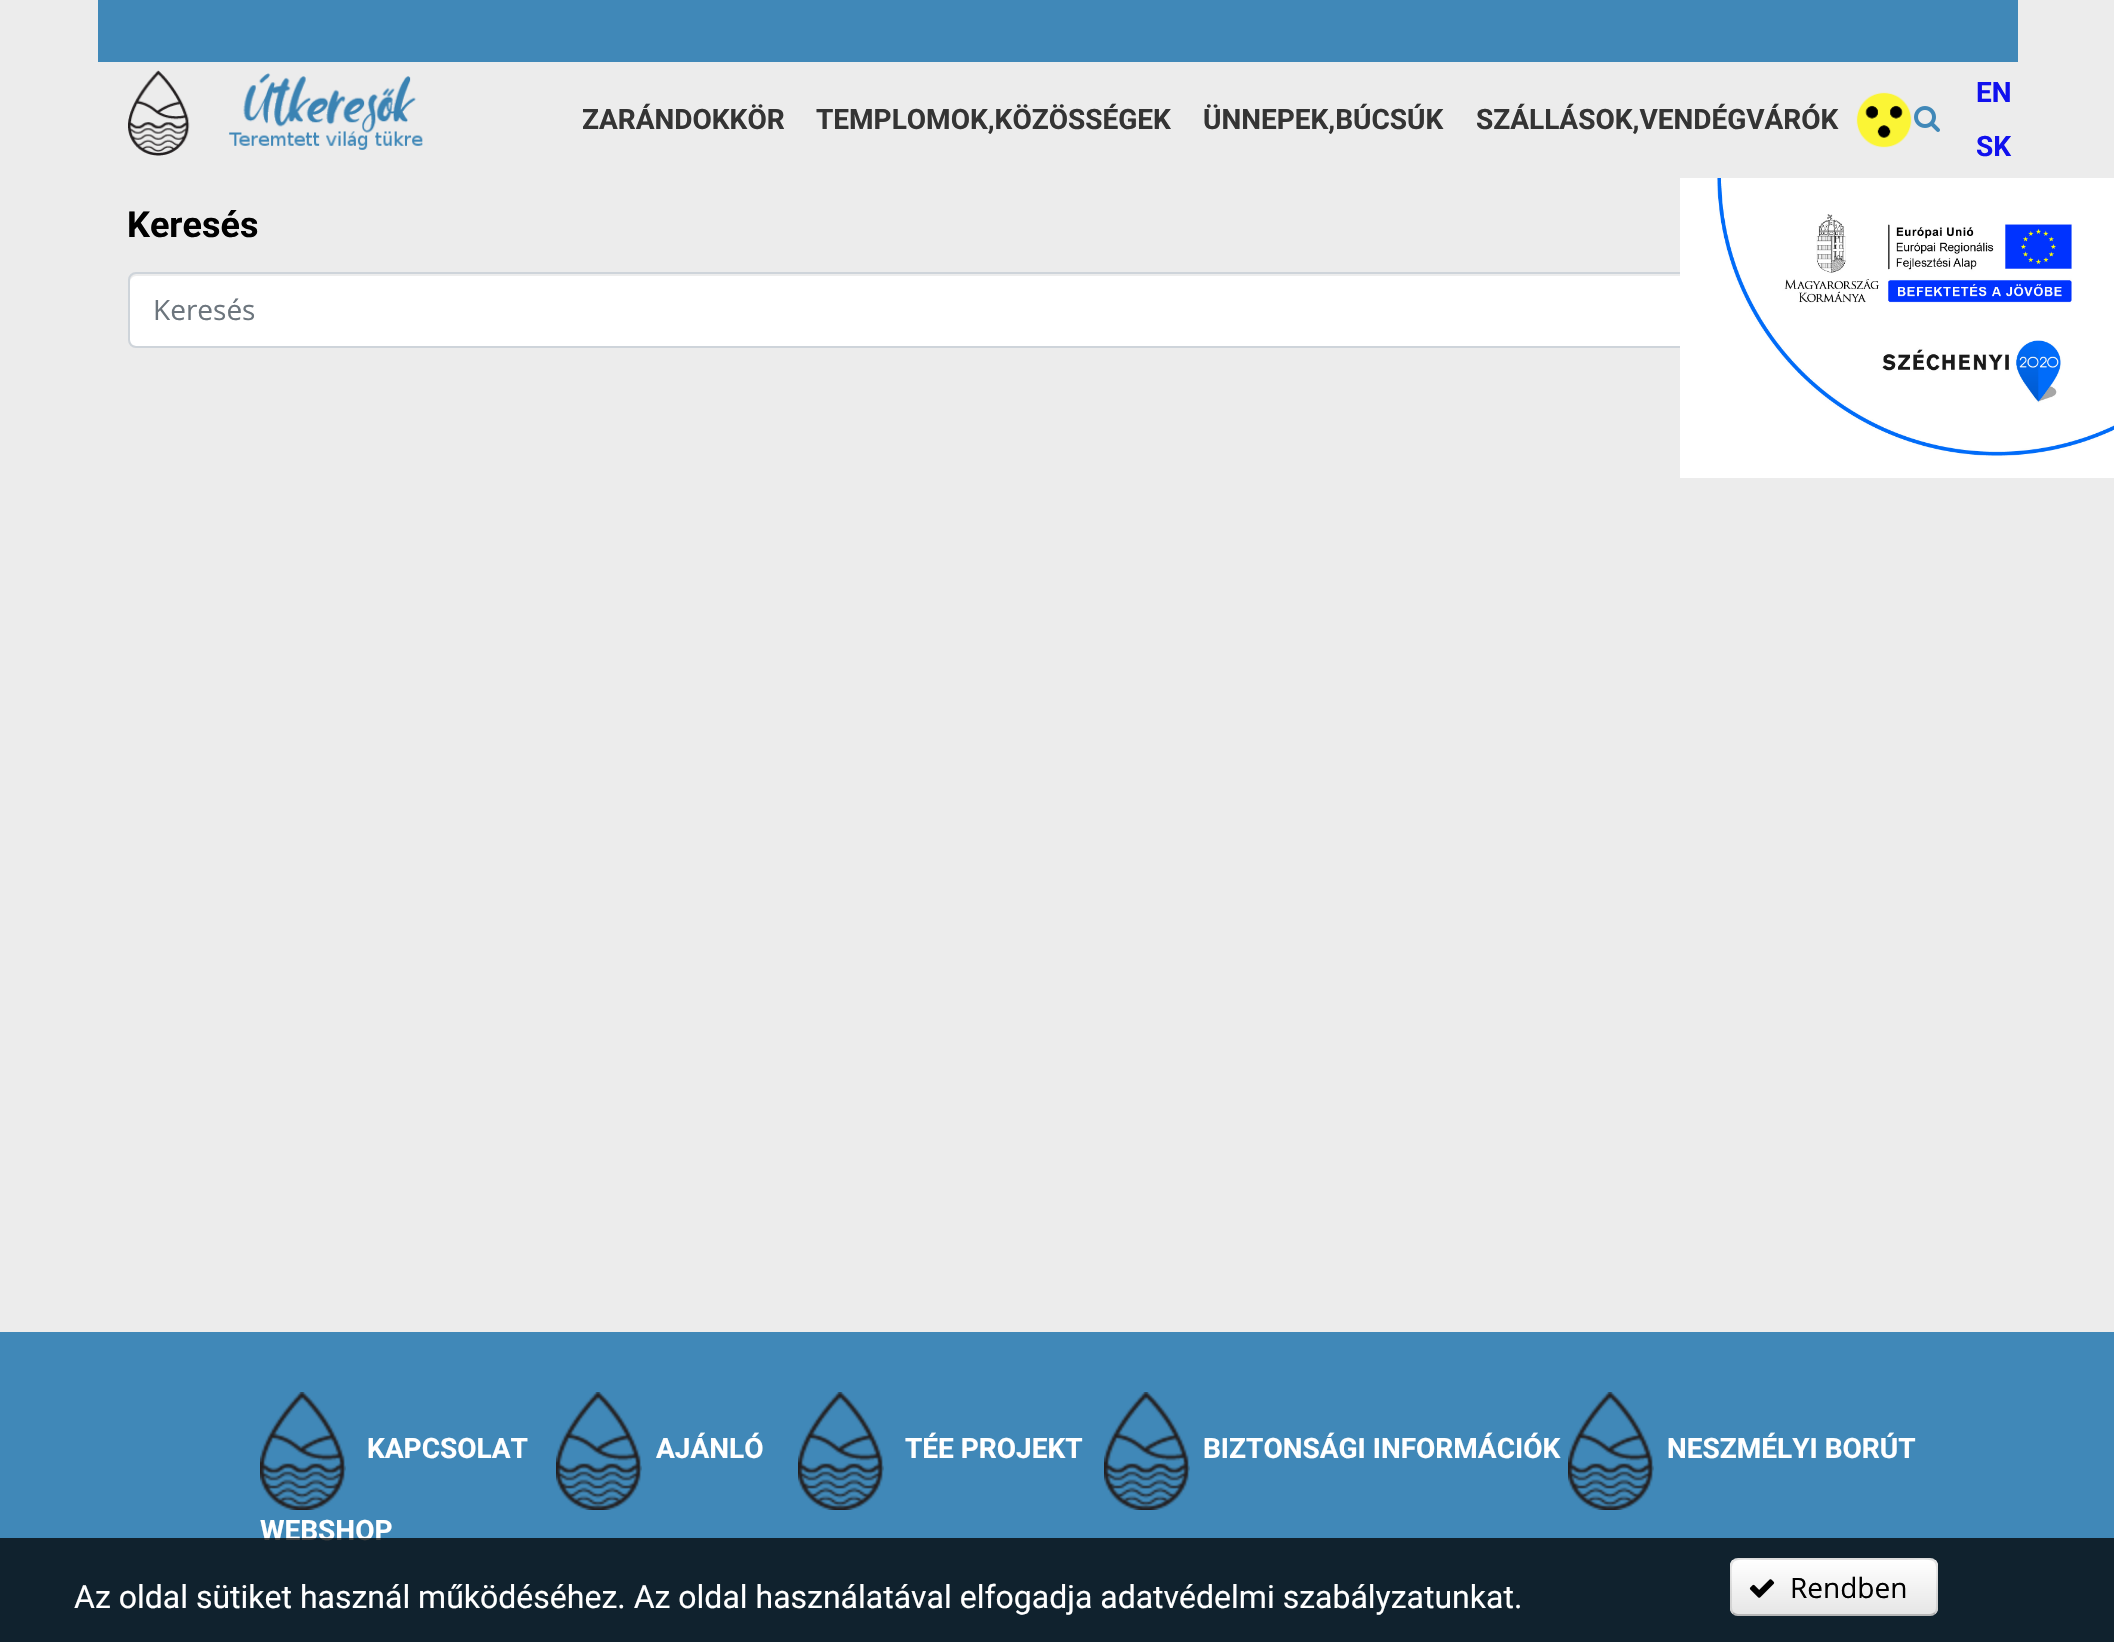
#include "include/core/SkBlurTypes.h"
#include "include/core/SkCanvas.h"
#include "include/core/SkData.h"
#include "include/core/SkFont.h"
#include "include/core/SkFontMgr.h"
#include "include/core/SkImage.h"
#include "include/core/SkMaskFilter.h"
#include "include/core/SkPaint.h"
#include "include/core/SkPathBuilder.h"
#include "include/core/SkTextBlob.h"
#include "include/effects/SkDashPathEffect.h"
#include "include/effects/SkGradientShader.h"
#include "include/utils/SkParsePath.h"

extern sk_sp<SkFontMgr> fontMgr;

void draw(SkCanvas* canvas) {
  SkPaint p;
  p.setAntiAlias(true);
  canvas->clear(SkColorSetRGB(236, 236, 236));
  p.setColor(SkColorSetRGB(64, 136, 184));
  canvas->drawRect(SkRect::MakeLTRB(98, 0, 2018, 62), p);
  canvas->drawImageRect(SkImages::DeferredFromEncodedData(SkData::MakeFromFileName("images/1.png")), SkRect::MakeLTRB(128, 70, 423, 156), SkSamplingOptions());
  canvas->drawImageRect(SkImages::DeferredFromEncodedData(SkData::MakeFromFileName("images/2.png")), SkRect::MakeLTRB(1856, 92, 1912, 148), SkSamplingOptions());
  canvas->drawImageRect(SkImages::DeferredFromEncodedData(SkData::MakeFromFileName("images/3.png")), SkRect::MakeLTRB(1914, 106, 1940, 132), SkSamplingOptions());
  p.setColor(SK_ColorWHITE);
  canvas->drawRoundRect(SkRect::MakeLTRB(130, 274, 1918, 346), 6, 6, p);
  p.setColor(SkColorSetARGB(18, 0, 0, 0));
  canvas->drawPath(SkPathBuilder().moveTo(136, 276).lineTo(1912, 276).cubicTo(1915, 276, 1918, 279, 1918, 282).cubicTo(1918, 278, 1917, 274, 1912, 274).lineTo(136, 274).cubicTo(131, 274, 130, 278, 130, 282).cubicTo(130, 279, 133, 276, 136, 276).close().detach(), p);
  p.setStyle(SkPaint::kStroke_Style);
  p.setStrokeWidth(2);
  p.setColor(SkColorSetRGB(206, 212, 218));
  canvas->drawRoundRect(SkRect::MakeLTRB(129, 273, 1919, 347), 7, 7, p);
  canvas->drawImageRect(SkImages::DeferredFromEncodedData(SkData::MakeFromFileName("images/4.png")), SkRect::MakeLTRB(1680, 178, 2114, 478), SkSamplingOptions());
  p.setStyle(SkPaint::kFill_Style);
  p.setColor(SkColorSetRGB(64, 136, 184));
  canvas->drawRect(SkRect::MakeLTRB(0, 1332, 2114, 1642), p);
  canvas->drawImageRect(SkImages::DeferredFromEncodedData(SkData::MakeFromFileName("images/5.png")), SkRect::MakeLTRB(260, 1392, 346, 1510), SkSamplingOptions());
  canvas->drawImageRect(SkImages::DeferredFromEncodedData(SkData::MakeFromFileName("images/5.png")), SkRect::MakeLTRB(556, 1392, 642, 1510), SkSamplingOptions());
  canvas->drawImageRect(SkImages::DeferredFromEncodedData(SkData::MakeFromFileName("images/5.png")), SkRect::MakeLTRB(798, 1392, 884, 1510), SkSamplingOptions());
  canvas->drawImageRect(SkImages::DeferredFromEncodedData(SkData::MakeFromFileName("images/5.png")), SkRect::MakeLTRB(1104, 1392, 1190, 1510), SkSamplingOptions());
  canvas->drawImageRect(SkImages::DeferredFromEncodedData(SkData::MakeFromFileName("images/5.png")), SkRect::MakeLTRB(1568, 1392, 1654, 1510), SkSamplingOptions());
  SkFont font1(fontMgr->matchFamilyStyle("Roboto", SkFontStyle::Bold()), 28);
  font1.setSubpixel(true);
  p.setColor(SkColorSetRGB(52, 52, 52));
  canvas->drawString("ZARÁNDOKKÖR", 582, 129, font1, p);
  canvas->drawString("TEMPLOMOK,KÖZÖSSÉGEK", 816, 129, font1, p);
  canvas->drawString("ÜNNEPEK,BÚCSÚK", 1203, 129, font1, p);
  canvas->drawString("SZÁLLÁSOK,VENDÉGVÁRÓK", 1476, 129, font1, p);
  p.setColor(SkColorSetRGB(17, 17, 238));
  canvas->drawString("EN", 1976, 102, font1, p);
  canvas->drawString("SK", 1976, 156, font1, p);
  SkFont font2(fontMgr->matchFamilyStyle("Roboto", SkFontStyle::Bold()), 36);
  font2.setSubpixel(true);
  p.setColor(SK_ColorBLACK);
  canvas->drawString("Keresés", 127, 237, font2, p);
  SkFont font3(fontMgr->matchFamilyStyle("Open Sans", SkFontStyle::Normal()), 28);
  font3.setSubpixel(true);
  p.setColor(SkColorSetRGB(108, 117, 125));
  canvas->drawString("Keresés", 153, 320, font3, p);
  p.setColor(SK_ColorWHITE);
  canvas->drawString("KAPCSOLAT", 367, 1458, font1, p);
  canvas->drawString("AJÁNLÓ", 656, 1458, font1, p);
  canvas->drawString("TÉE PROJEKT", 905, 1458, font1, p);
  canvas->drawString("BIZTONSÁGI INFORMÁCIÓK", 1203, 1458, font1, p);
  canvas->drawString("NESZMÉLYI BORÚT", 1667, 1458, font1, p);
  canvas->drawString("WEBSHOP", 260, 1540, font1, p);
  p.setColor(SkColorSetARGB(191, 0, 0, 0));
  canvas->drawRect(SkRect::MakeLTRB(0, 1538, 2114, 1642), p);
  SkFont font4(fontMgr->matchFamilyStyle("Roboto", SkFontStyle::Normal()), 32);
  font4.setSubpixel(true);
  p.setColor(SK_ColorWHITE);
  canvas->drawString("Az oldal sütiket használ működéséhez. Az oldal használatával elfogadja adatvédelmi szabályzatunkat.", 74, 1608, font4, p);
  p.setColor(SkColorSetRGB(245, 245, 245));
  canvas->drawRoundRect(SkRect::MakeLTRB(1730, 1558, 1938, 1616), 8, 8, p);
  canvas->save();
  canvas->clipPath(SkPathBuilder().moveTo(1738, 1558).lineTo(1930, 1558).cubicTo(1934.5f, 1558, 1938, 1561.5f, 1938, 1566).lineTo(1938, 1608).cubicTo(1938, 1612.5f, 1934.5f, 1616, 1930, 1616).lineTo(1738, 1616).cubicTo(1733.5f, 1616, 1730, 1612.5f, 1730, 1608).lineTo(1730, 1566).cubicTo(1730, 1561.5f, 1733.5f, 1558, 1738, 1558).close().detach(), true);
  {
    const SkColor colors[] = {SK_ColorWHITE, SkColorSetRGB(230, 230, 230)};
    const float stops[] = {0, 1};
    const SkPoint ends[] = {{1834, 1560}, {1834, 1614}};
    p.setShader(SkGradientShader::MakeLinear(ends, colors, stops, 2, SkTileMode::kClamp));
    p.setAlpha(255);
  }
  canvas->drawRect(SkRect::MakeLTRB(1730, 1560, 1938, 1614), p);
  canvas->restore();
  p.setStyle(SkPaint::kStroke_Style);
  p.setShader(nullptr);
  p.setColor(SkColorSetARGB(64, 0, 0, 0));
  canvas->drawPath(SkPathBuilder().moveTo(1935, 1613).cubicTo(1933.5f, 1614.5f, 1932, 1615, 1930, 1615).lineTo(1738, 1615).cubicTo(1736, 1615, 1734.5f, 1614.5f, 1733, 1613).detach(), p);
  p.setColor(SkColorSetARGB(26, 0, 0, 0));
  canvas->drawPath(SkPathBuilder().moveTo(1733, 1613).cubicTo(1730, 1610, 1731, 1605, 1731, 1601).lineTo(1731, 1594).cubicTo(1731, 1552, 1724.5f, 1559, 1770, 1559).lineTo(1898, 1559).cubicTo(1943.5f, 1559, 1937, 1552, 1937, 1594).lineTo(1937, 1601).cubicTo(1937, 1605, 1938, 1610, 1935, 1613).detach(), p);
  canvas->drawImageRect(SkImages::DeferredFromEncodedData(SkData::MakeFromFileName("images/6.png")), SkRect::MakeLTRB(1749, 1579, 1775, 1598), SkSamplingOptions());
  p.setStyle(SkPaint::kFill_Style);
  p.setColor(SK_ColorBLACK);
  canvas->drawString("Rendben", 1790, 1598, font3, p);
}
